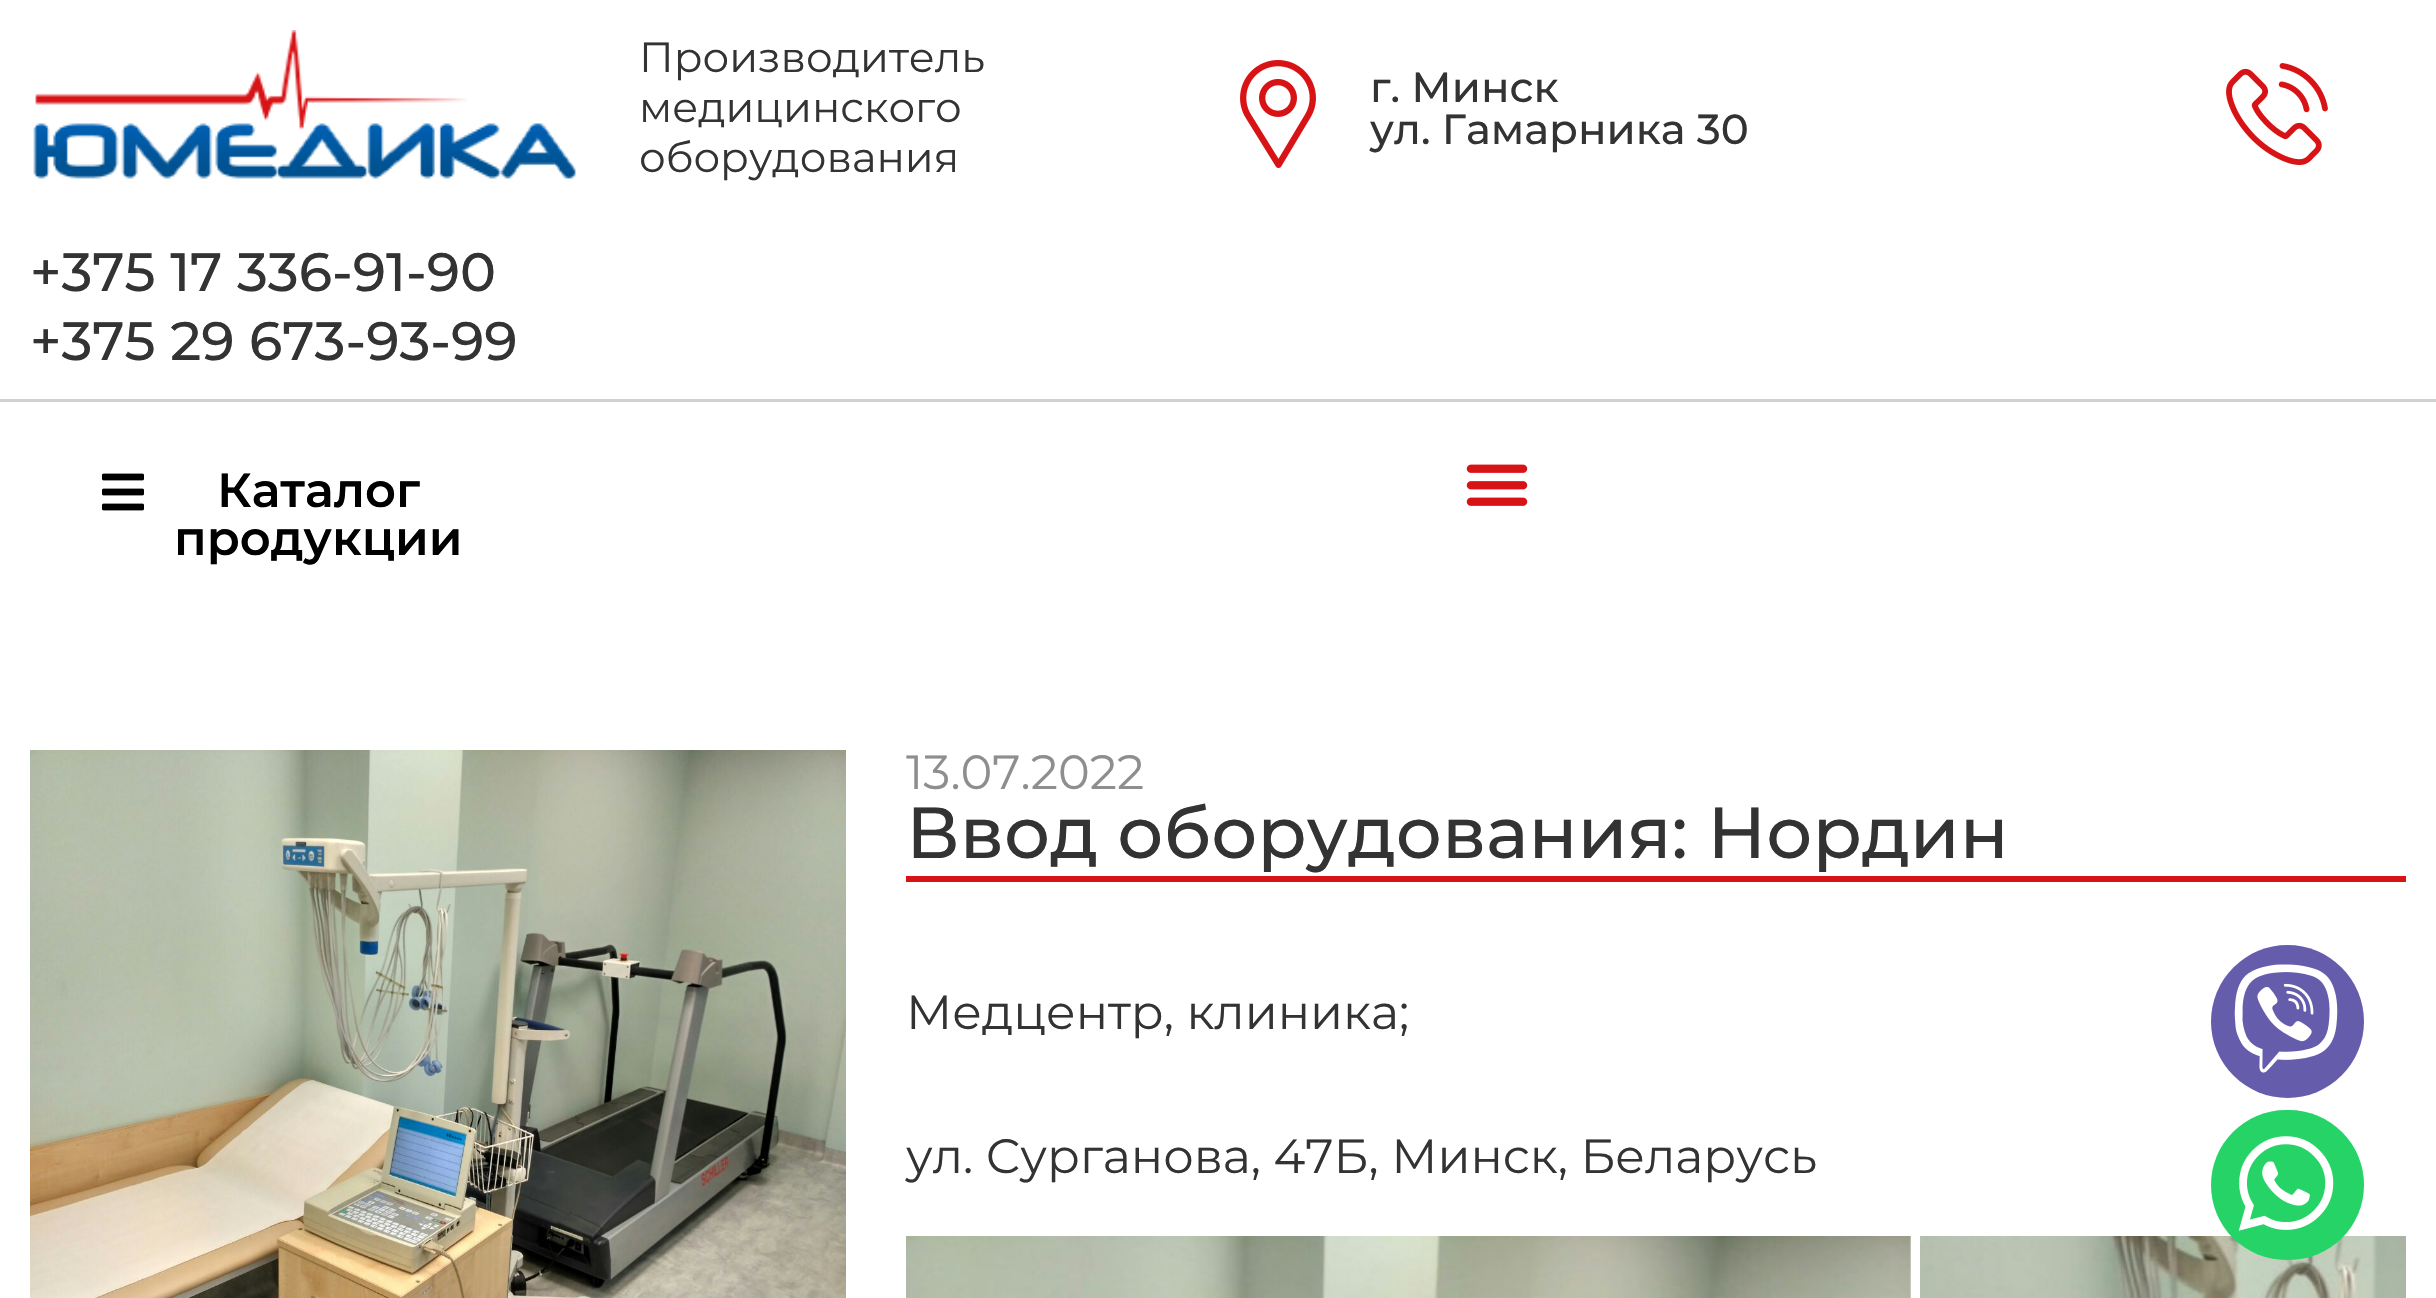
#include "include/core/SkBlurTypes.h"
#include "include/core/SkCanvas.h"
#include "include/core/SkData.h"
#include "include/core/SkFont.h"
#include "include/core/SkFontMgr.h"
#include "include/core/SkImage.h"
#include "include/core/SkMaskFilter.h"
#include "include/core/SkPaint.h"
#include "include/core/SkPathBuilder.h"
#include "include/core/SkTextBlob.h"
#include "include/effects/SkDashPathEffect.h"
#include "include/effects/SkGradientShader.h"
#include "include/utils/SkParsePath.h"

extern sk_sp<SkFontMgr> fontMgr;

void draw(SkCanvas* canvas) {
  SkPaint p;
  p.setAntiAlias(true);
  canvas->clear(SK_ColorWHITE);
  p.setColor(SkColorSetRGB(209, 209, 209));
  canvas->drawRect(SkRect::MakeLTRB(0, 399, 2436, 402), p);
  canvas->drawImageRect(SkImages::DeferredFromEncodedData(SkData::MakeFromFileName("images/1.png")), SkRect::MakeLTRB(33, 30, 576, 179), SkSamplingOptions());
  canvas->drawImageRect(SkImages::DeferredFromEncodedData(SkData::MakeFromFileName("images/2.png")), SkRect::MakeLTRB(1240, 60, 1316, 168), SkSamplingOptions());
  canvas->drawImageRect(SkImages::DeferredFromEncodedData(SkData::MakeFromFileName("images/3.png")), SkRect::MakeLTRB(2226, 63, 2328, 165), SkSamplingOptions());
  canvas->drawImageRect(SkImages::DeferredFromEncodedData(SkData::MakeFromFileName("images/4.png")), SkRect::MakeLTRB(102, 473, 144, 511), SkSamplingOptions());
  canvas->drawImageRect(SkImages::DeferredFromEncodedData(SkData::MakeFromFileName("images/5.png")), SkRect::MakeLTRB(1466, 464, 1528, 506), SkSamplingOptions());
  canvas->drawImageRect(SkImages::DeferredFromEncodedData(SkData::MakeFromFileName("images/6.png")), SkRect::MakeLTRB(30, 750, 846, 1298), SkSamplingOptions());
  p.setColor(SkColorSetRGB(216, 19, 22));
  canvas->drawRect(SkRect::MakeLTRB(906, 876, 2406, 882), p);
  canvas->drawImageRect(SkImages::DeferredFromEncodedData(SkData::MakeFromFileName("images/7.png")), SkRect::MakeLTRB(906, 1236, 1911, 1298), SkSamplingOptions());
  canvas->drawImageRect(SkImages::DeferredFromEncodedData(SkData::MakeFromFileName("images/8.png")), SkRect::MakeLTRB(1920, 1236, 2406, 1298), SkSamplingOptions());
  p.setColor(SkColorSetRGB(102, 92, 172));
  canvas->drawCircle(2287.5f, 1021.5f, 76.5f, p);
  canvas->drawImageRect(SkImages::DeferredFromEncodedData(SkData::MakeFromFileName("images/9.png")), SkRect::MakeLTRB(2234, 964, 2338, 1073), SkSamplingOptions());
  p.setColor(SkColorSetRGB(37, 211, 102));
  canvas->drawRoundRect(SkRect::MakeLTRB(2211, 1110, 2364, 1260), 75, 75, p);
  canvas->drawImageRect(SkImages::DeferredFromEncodedData(SkData::MakeFromFileName("images/10.png")), SkRect::MakeLTRB(2238, 1136, 2334, 1231), SkSamplingOptions());
  SkFont font1(fontMgr->matchFamilyStyle("Montserrat", SkFontStyle::Normal()), 42);
  font1.setSubpixel(true);
  p.setColor(SkColorSetRGB(51, 51, 51));
  canvas->drawString("Производитель", 639, 72, font1, p);
  canvas->drawString("медицинского", 639, 122, font1, p);
  canvas->drawString("оборудования", 639, 172, font1, p);
  SkFont font2(fontMgr->matchFamilyStyle("Montserrat", SkFontStyle(500, SkFontStyle::kNormal_Width, SkFontStyle::kUpright_Slant)), 42);
  font2.setSubpixel(true);
  canvas->drawString("г. Минск", 1370, 102, font2, p);
  canvas->drawString("ул. Гамарника 30", 1370, 144, font2, p);
  SkFont font3(fontMgr->matchFamilyStyle("Montserrat", SkFontStyle(500, SkFontStyle::kNormal_Width, SkFontStyle::kUpright_Slant)), 54);
  font3.setSubpixel(true);
  canvas->drawString("+375 17 336-91-90", 30, 291, font3, p);
  canvas->drawString("+375 29 673-93-99", 30, 360, font3, p);
  SkFont font4(fontMgr->matchFamilyStyle("Montserrat", SkFontStyle(600, SkFontStyle::kNormal_Width, SkFontStyle::kUpright_Slant)), 48);
  font4.setSubpixel(true);
  p.setColor(SK_ColorBLACK);
  canvas->drawString("Каталог", 217, 507, font4, p);
  canvas->drawString("продукции", 174, 555, font4, p);
  SkFont font5(fontMgr->matchFamilyStyle("Montserrat", SkFontStyle::Normal()), 48);
  font5.setSubpixel(true);
  p.setColor(SkColorSetRGB(142, 142, 142));
  canvas->drawString("13.07.2022", 906, 789, font5, p);
  SkFont font6(fontMgr->matchFamilyStyle("Montserrat", SkFontStyle(500, SkFontStyle::kNormal_Width, SkFontStyle::kUpright_Slant)), 72);
  font6.setSubpixel(true);
  p.setColor(SkColorSetRGB(51, 51, 51));
  canvas->drawString("Ввод оборудования: Нордин", 906, 858, font6, p);
  canvas->drawString("Медцентр, клиника;", 906, 1029, font5, p);
  canvas->drawString("ул. Сурганова, 47Б, Минск, Беларусь", 906, 1173, font5, p);
}
